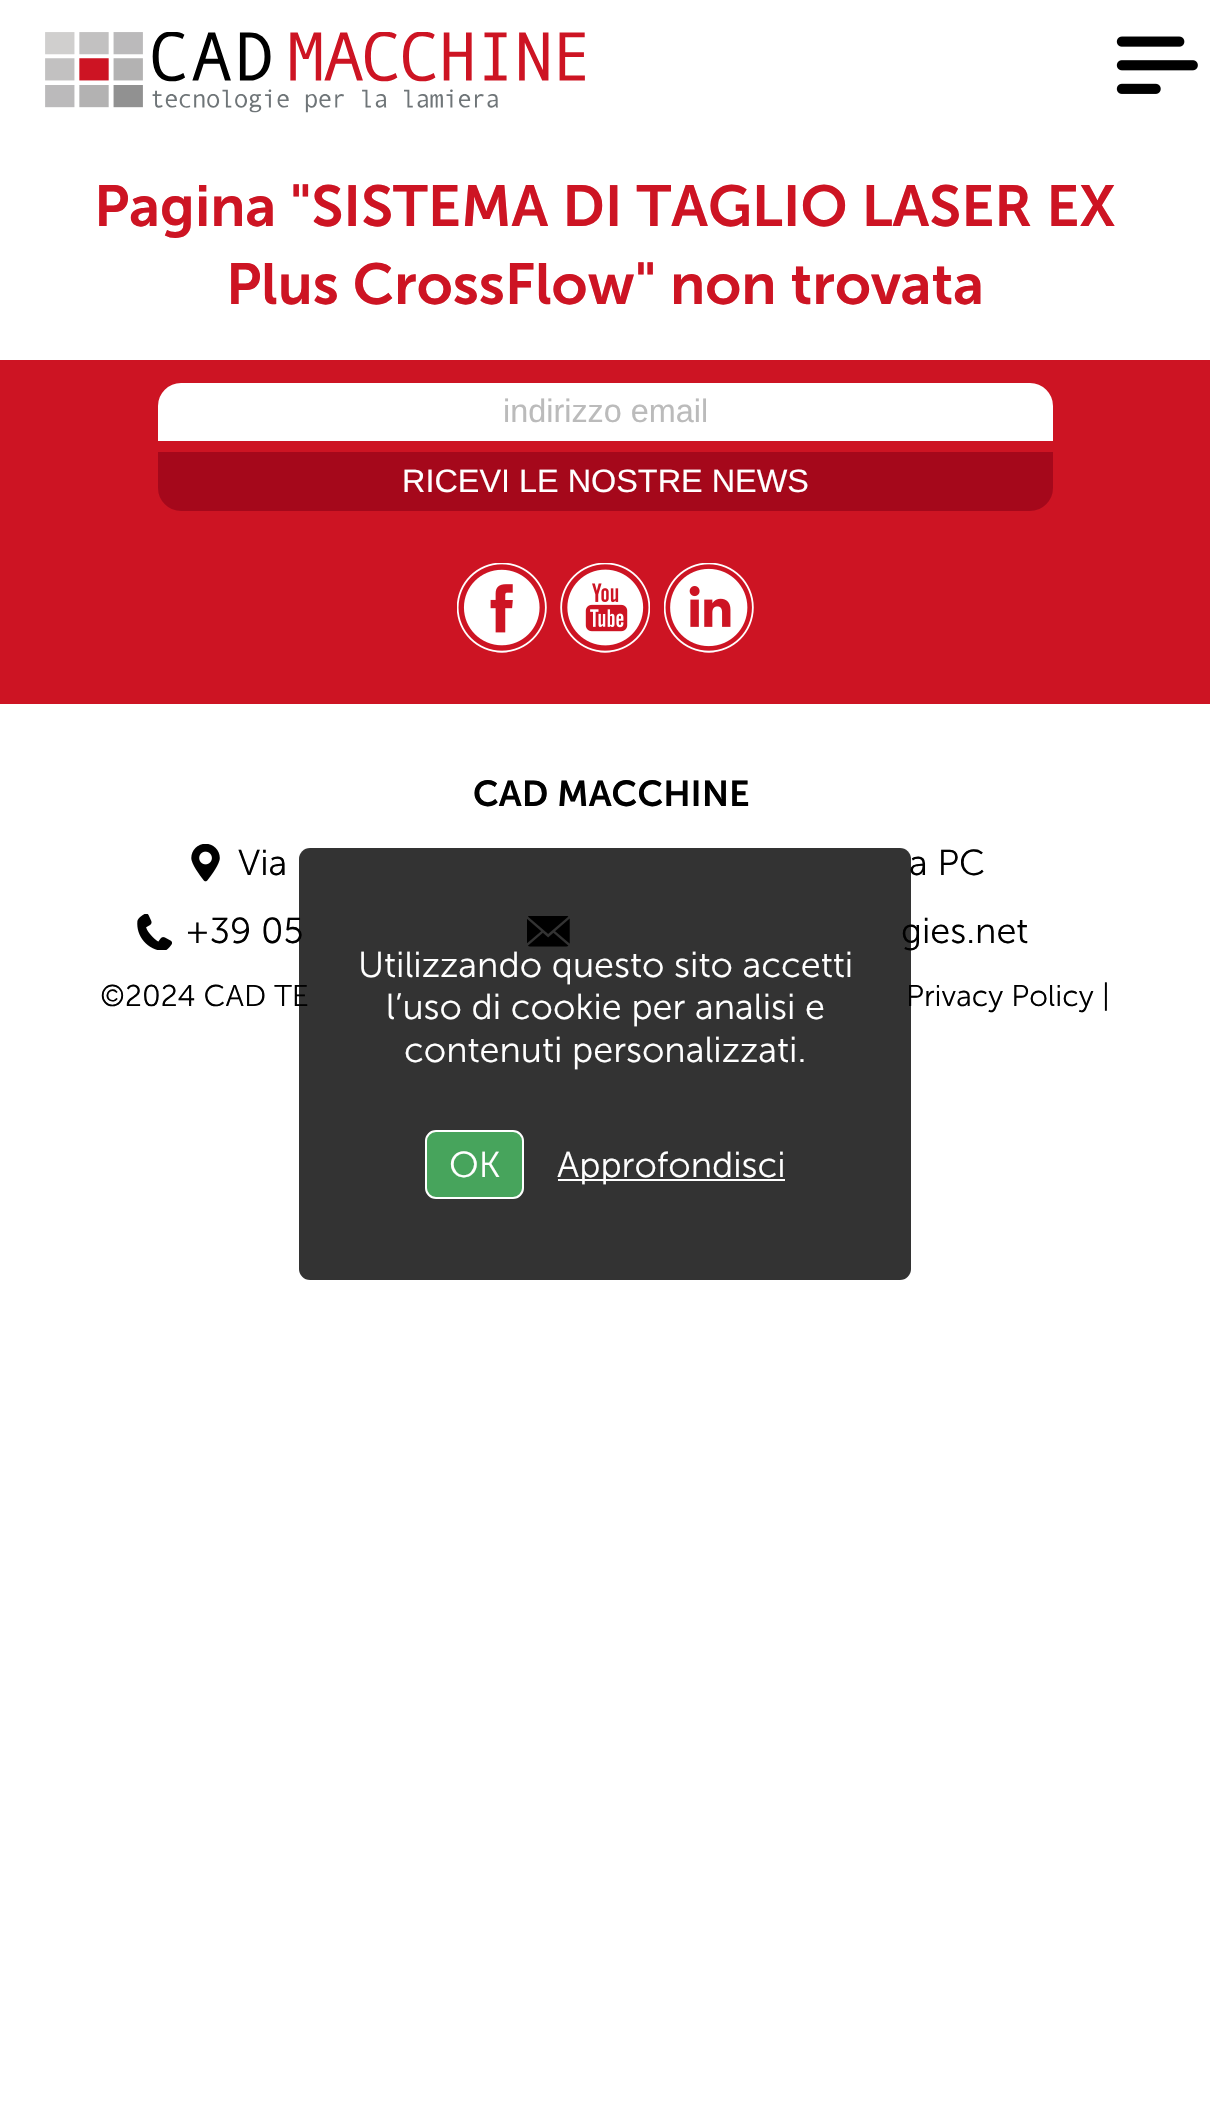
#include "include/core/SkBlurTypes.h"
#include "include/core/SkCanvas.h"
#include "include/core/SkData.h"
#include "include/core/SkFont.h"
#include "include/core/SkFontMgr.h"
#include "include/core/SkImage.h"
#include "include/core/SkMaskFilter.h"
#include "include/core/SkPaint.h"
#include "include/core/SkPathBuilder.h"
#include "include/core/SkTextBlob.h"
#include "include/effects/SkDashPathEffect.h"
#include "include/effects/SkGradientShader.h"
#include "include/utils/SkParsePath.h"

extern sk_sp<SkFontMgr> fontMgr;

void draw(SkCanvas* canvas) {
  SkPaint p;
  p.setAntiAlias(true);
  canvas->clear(SK_ColorWHITE);
  canvas->drawImageRect(SkImages::DeferredFromEncodedData(SkData::MakeFromFileName("images/1.png")), SkRect::MakeLTRB(45, 32, 585, 113), SkSamplingOptions());
  canvas->drawImageRect(SkImages::DeferredFromEncodedData(SkData::MakeFromFileName("images/2.png")), SkRect::MakeLTRB(1116, 36, 1198, 94), SkSamplingOptions());
  p.setColor(SkColorSetRGB(205, 20, 35));
  canvas->drawRect(SkRect::MakeLTRB(0, 360, 1210, 704), p);
  p.setColor(SK_ColorWHITE);
  canvas->drawPath(SkPathBuilder().moveTo(181, 384).lineTo(1030, 384).cubicTo(1042, 384, 1052, 394, 1052, 406).lineTo(1052, 440).lineTo(159, 440).lineTo(159, 406).cubicTo(159, 394, 169, 384, 181, 384).close().detach(), p);
  p.setStyle(SkPaint::kStroke_Style);
  p.setStrokeWidth(2);
  canvas->drawPath(SkPathBuilder().moveTo(181, 384).lineTo(1030, 384).cubicTo(1042, 384, 1052, 394, 1052, 406).lineTo(1052, 440).lineTo(159, 440).lineTo(159, 406).cubicTo(159, 394, 169, 384, 181, 384).close().detach(), p);
  p.setStyle(SkPaint::kFill_Style);
  p.setColor(SkColorSetRGB(165, 8, 27));
  canvas->drawPath(SkPathBuilder().moveTo(159, 453).lineTo(1052, 453).lineTo(1052, 488).cubicTo(1052, 500, 1042, 510, 1030, 510).lineTo(181, 510).cubicTo(169, 510, 159, 500, 159, 488).close().detach(), p);
  p.setStyle(SkPaint::kStroke_Style);
  canvas->drawPath(SkPathBuilder().moveTo(159, 453).lineTo(1052, 453).lineTo(1052, 488).cubicTo(1052, 500, 1042, 510, 1030, 510).lineTo(181, 510).cubicTo(169, 510, 159, 500, 159, 488).close().detach(), p);
  canvas->drawImageRect(SkImages::DeferredFromEncodedData(SkData::MakeFromFileName("images/3.png")), SkRect::MakeLTRB(457, 563, 547, 653), SkSamplingOptions());
  canvas->drawImageRect(SkImages::DeferredFromEncodedData(SkData::MakeFromFileName("images/4.png")), SkRect::MakeLTRB(560, 563, 650, 653), SkSamplingOptions());
  canvas->drawImageRect(SkImages::DeferredFromEncodedData(SkData::MakeFromFileName("images/5.png")), SkRect::MakeLTRB(664, 563, 754, 653), SkSamplingOptions());
  canvas->drawImageRect(SkImages::DeferredFromEncodedData(SkData::MakeFromFileName("images/6.png")), SkRect::MakeLTRB(191, 844, 220, 882), SkSamplingOptions());
  canvas->drawImageRect(SkImages::DeferredFromEncodedData(SkData::MakeFromFileName("images/7.png")), SkRect::MakeLTRB(137, 914, 172, 950), SkSamplingOptions());
  canvas->drawImageRect(SkImages::DeferredFromEncodedData(SkData::MakeFromFileName("images/8.png")), SkRect::MakeLTRB(527, 916, 570, 947), SkSamplingOptions());
  SkFont font1(fontMgr->matchFamilyStyle("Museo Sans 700", SkFontStyle(600, SkFontStyle::kNormal_Width, SkFontStyle::kUpright_Slant)), 57.6f);
  font1.setSubpixel(true);
  p.setStyle(SkPaint::kFill_Style);
  p.setColor(SkColorSetRGB(205, 20, 35));
  canvas->drawString("Pagina \"SISTEMA DI TAGLIO LASER EX", 94, 226, font1, p);
  canvas->drawString("Plus CrossFlow\" non trovata", 226, 304, font1, p);
  SkFont font2(fontMgr->matchFamilyStyle("Liberation Sans", SkFontStyle::Normal()), 32.4f);
  font2.setSubpixel(true);
  p.setColor(SkColorSetRGB(187, 187, 187));
  canvas->drawString("indirizzo email", 503, 422, font2, p);
  p.setColor(SK_ColorWHITE);
  canvas->drawString("RICEVI LE NOSTRE NEWS", 402, 492, font2, p);
  SkFont font3(fontMgr->matchFamilyStyle("Museo Sans 700", SkFontStyle(600, SkFontStyle::kNormal_Width, SkFontStyle::kUpright_Slant)), 36);
  font3.setSubpixel(true);
  p.setColor(SK_ColorBLACK);
  canvas->drawString("CAD MACCHINE", 473, 806, font3, p);
  SkFont font4(fontMgr->matchFamilyStyle("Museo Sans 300", SkFontStyle(300, SkFontStyle::kNormal_Width, SkFontStyle::kUpright_Slant)), 36);
  font4.setSubpixel(true);
  canvas->drawString("Via", 238, 875, font4, p);
  canvas->drawString("a PC", 909, 875, font4, p);
  canvas->drawString("+39 05", 185, 943, font4, p);
  canvas->drawString("gies.net", 901, 943, font4, p);
  SkFont font5(fontMgr->matchFamilyStyle("Museo Sans 300", SkFontStyle(300, SkFontStyle::kNormal_Width, SkFontStyle::kUpright_Slant)), 30);
  font5.setSubpixel(true);
  canvas->drawString("©2024 CAD TE", 100, 1006, font5, p);
  canvas->drawString("Privacy Policy |", 906, 1006, font5, p);
  p.setColor(SkColorSetARGB(204, 0, 0, 0));
  canvas->drawRoundRect(SkRect::MakeLTRB(299, 848, 911, 1280), 11, 11, p);
  p.setColor(SK_ColorWHITE);
  canvas->drawString("Utilizzando questo sito accetti", 358, 977, font4, p);
  canvas->drawString("l’uso di cookie per analisi e", 386, 1019, font4, p);
  canvas->drawString("contenuti personalizzati.", 404, 1062, font4, p);
  p.setColor(SkColorSetRGB(71, 164, 92));
  canvas->drawRoundRect(SkRect::MakeLTRB(426, 1131, 523, 1198), 10, 10, p);
  p.setStyle(SkPaint::kStroke_Style);
  p.setColor(SK_ColorWHITE);
  canvas->drawRoundRect(SkRect::MakeLTRB(426, 1131, 523, 1198), 10, 10, p);
  p.setStyle(SkPaint::kFill_Style);
  canvas->drawString("OK", 449, 1177, font4, p);
  canvas->drawRect(SkRect::MakeLTRB(558, 1179, 785, 1181), p);
  canvas->drawString("Approfondisci", 557, 1177, font4, p);
}
